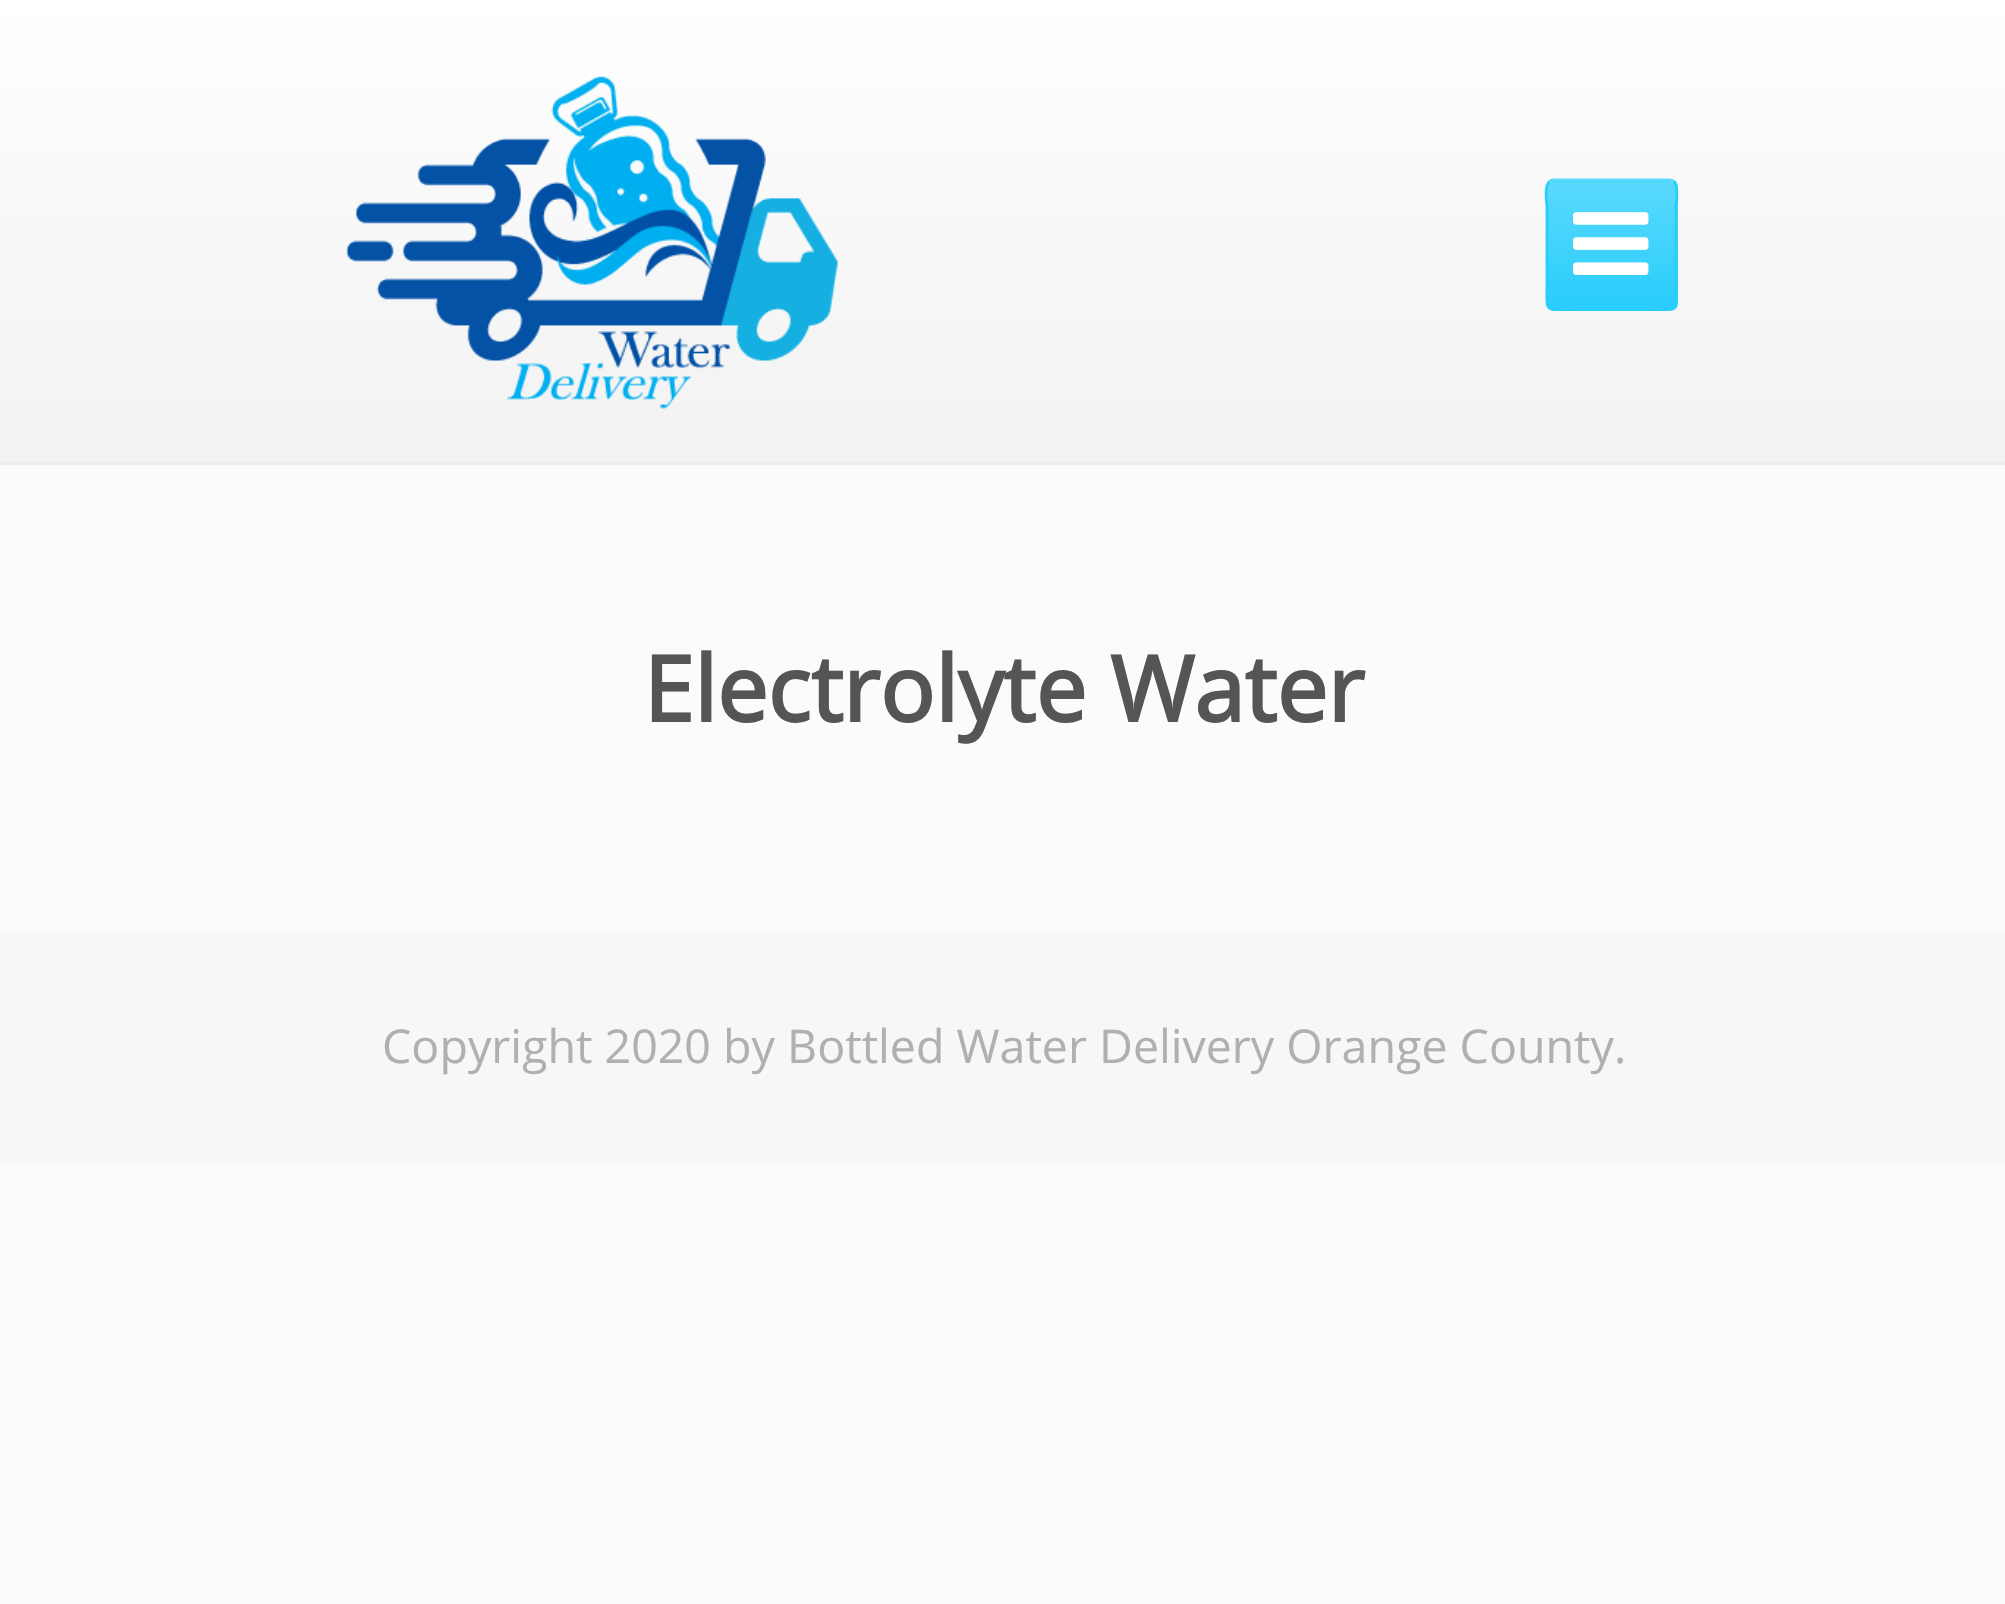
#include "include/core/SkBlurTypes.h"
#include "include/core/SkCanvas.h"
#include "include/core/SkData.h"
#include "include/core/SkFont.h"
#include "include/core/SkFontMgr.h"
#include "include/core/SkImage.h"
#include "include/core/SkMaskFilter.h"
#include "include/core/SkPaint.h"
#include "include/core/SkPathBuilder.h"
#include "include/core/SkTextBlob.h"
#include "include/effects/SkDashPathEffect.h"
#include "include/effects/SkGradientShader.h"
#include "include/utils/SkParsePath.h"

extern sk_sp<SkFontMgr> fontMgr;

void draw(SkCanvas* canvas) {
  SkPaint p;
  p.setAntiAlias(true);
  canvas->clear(SkColorSetRGB(251, 251, 251));
  {
    const SkColor colors[] = {SK_ColorWHITE, SkColorSetRGB(248, 248, 248), SkColorSetRGB(242, 242, 242)};
    const float stops[] = {0, 0.5f, 1};
    const SkPoint ends[] = {{1004, 0}, {1004, 462}};
    p.setShader(SkGradientShader::MakeLinear(ends, colors, stops, 3, SkTileMode::kClamp));
    p.setAlpha(255);
  }
  canvas->drawRect(SkRect::MakeLTRB(0, 0, 2005, 462), p);
  p.setShader(nullptr);
  p.setColor(SkColorSetRGB(235, 235, 235));
  canvas->drawRect(SkRect::MakeLTRB(0, 462, 2005, 465), p);
  canvas->drawImageRect(SkImages::DeferredFromEncodedData(SkData::MakeFromFileName("images/1.png")), SkRect::MakeLTRB(346, 76, 839, 409), SkSamplingOptions());
  canvas->save();
  canvas->clipPath(SkPathBuilder().moveTo(1554, 179).lineTo(1670, 179).cubicTo(1674.5f, 179, 1678, 182.5f, 1678, 187).lineTo(1678, 303).cubicTo(1678, 307.5f, 1674.5f, 311, 1670, 311).lineTo(1554, 311).cubicTo(1549.5f, 311, 1546, 307.5f, 1546, 303).lineTo(1546, 187).cubicTo(1546, 182.5f, 1549.5f, 179, 1554, 179).close().detach(), true);
  {
    const SkColor colors[] = {SkColorSetRGB(90, 217, 252), SkColorSetRGB(40, 205, 251)};
    const float stops[] = {0, 1};
    const SkPoint ends[] = {{1612, 55}, {1612, 182}};
    p.setShader(SkGradientShader::MakeLinear(ends, colors, stops, 2, SkTileMode::kClamp));
    p.setAlpha(255);
  }
  canvas->drawRect(SkRect::MakeLTRB(1546, 179, 1678, 182), p);
  {
    const SkColor colors[] = {SkColorSetRGB(90, 217, 252), SkColorSetRGB(40, 205, 251)};
    const float stops[] = {0, 1};
    const SkPoint ends[] = {{1612, 182}, {1612, 308}};
    p.setShader(SkGradientShader::MakeLinear(ends, colors, stops, 2, SkTileMode::kClamp));
    p.setAlpha(255);
  }
  canvas->drawRect(SkRect::MakeLTRB(1546, 182, 1678, 308), p);
  {
    const SkColor colors[] = {SkColorSetRGB(90, 217, 252), SkColorSetRGB(40, 205, 251)};
    const float stops[] = {0, 1};
    const SkPoint ends[] = {{1612, 308}, {1612, 435}};
    p.setShader(SkGradientShader::MakeLinear(ends, colors, stops, 2, SkTileMode::kClamp));
    p.setAlpha(255);
  }
  canvas->drawRect(SkRect::MakeLTRB(1546, 308, 1678, 311), p);
  canvas->restore();
  p.setStyle(SkPaint::kStroke_Style);
  p.setStrokeWidth(2.8f);
  p.setShader(nullptr);
  p.setColor(SkColorSetRGB(90, 217, 252));
  canvas->drawPath(SkPathBuilder().moveTo(1549, 182).cubicTo(1550, 181, 1552, 180, 1554, 180).lineTo(1669, 180).cubicTo(1671, 180, 1673, 181, 1674, 182).detach(), p);
  p.setColor(SkColorSetRGB(40, 205, 251));
  canvas->drawPath(SkPathBuilder().moveTo(1674, 182).cubicTo(1679, 187, 1676, 206, 1676, 206).lineTo(1676, 283).cubicTo(1676, 313, 1679.5f, 309.5f, 1650, 309.5f).lineTo(1573, 309.5f).cubicTo(1543.5f, 309.5f, 1547, 313, 1547, 283).lineTo(1547, 206).cubicTo(1547, 206, 1544, 187, 1549, 182).detach(), p);
  canvas->drawImageRect(SkImages::DeferredFromEncodedData(SkData::MakeFromFileName("images/2.png")), SkRect::MakeLTRB(1573, 212, 1649, 275), SkSamplingOptions());
  p.setStyle(SkPaint::kFill_Style);
  p.setColor(SkColorSetRGB(247, 247, 247));
  canvas->drawRect(SkRect::MakeLTRB(0, 932, 2005, 1163), p);
  SkFont font1(fontMgr->matchFamilyStyle("Open Sans", SkFontStyle::Bold()), 90.75f);
  font1.setSubpixel(true);
  p.setColor(SkColorSetRGB(85, 85, 85));
  canvas->drawString("Electrolyte Water", 643, 722, font1, p);
  SkFont font2(fontMgr->matchFamilyStyle("Open Sans", SkFontStyle::Normal()), 46.5f);
  font2.setSubpixel(true);
  p.setColor(SkColorSetRGB(176, 176, 176));
  canvas->drawString("Copyright 2020 by Bottled Water Delivery Orange County.", 382, 1063, font2, p);
}
